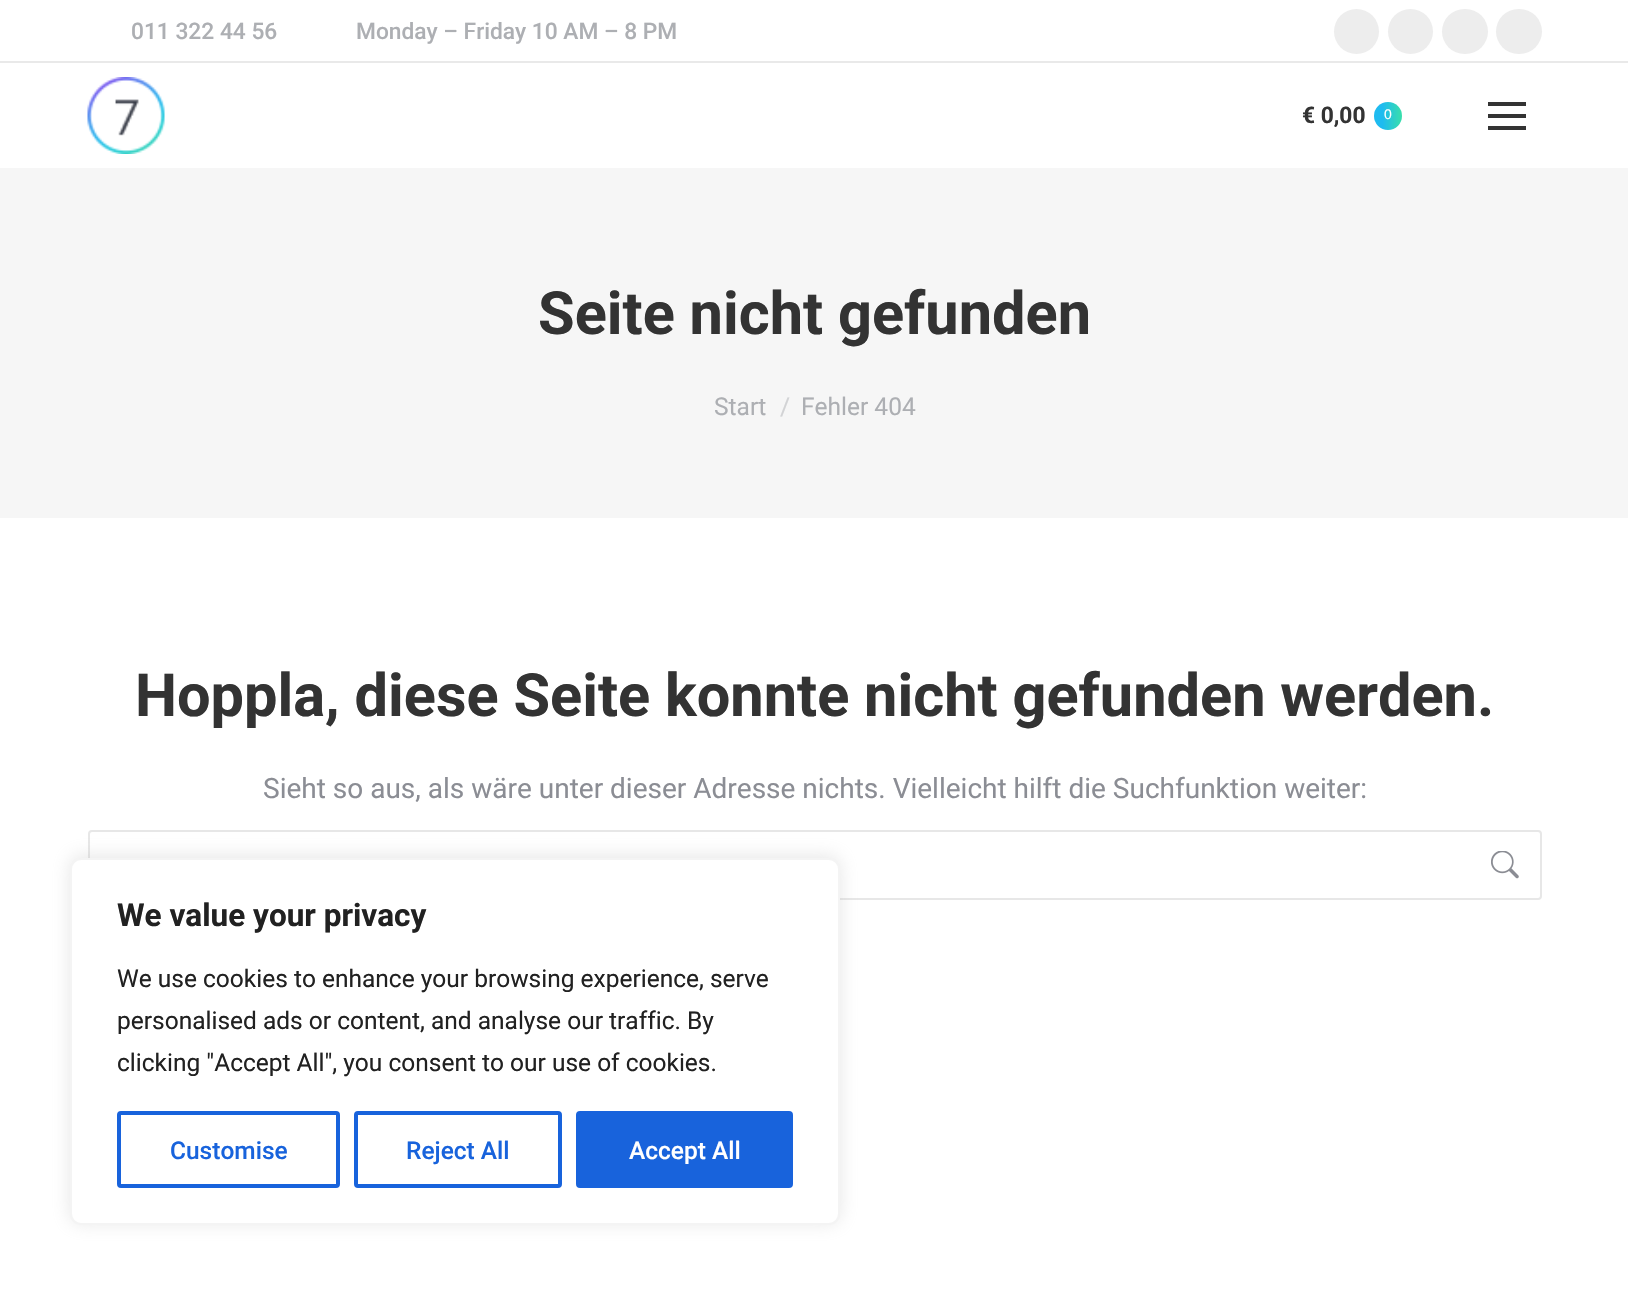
#include "include/core/SkBlurTypes.h"
#include "include/core/SkCanvas.h"
#include "include/core/SkData.h"
#include "include/core/SkFont.h"
#include "include/core/SkFontMgr.h"
#include "include/core/SkImage.h"
#include "include/core/SkMaskFilter.h"
#include "include/core/SkPaint.h"
#include "include/core/SkPathBuilder.h"
#include "include/core/SkTextBlob.h"
#include "include/effects/SkDashPathEffect.h"
#include "include/effects/SkGradientShader.h"
#include "include/utils/SkParsePath.h"

extern sk_sp<SkFontMgr> fontMgr;

void draw(SkCanvas* canvas) {
  SkPaint p;
  p.setAntiAlias(true);
  canvas->clear(SK_ColorWHITE);
  p.setColor(SkColorSetRGB(237, 237, 237));
  canvas->drawCircle(1356.5f, 31.5f, 22.5f, p);
  canvas->drawCircle(1410.5f, 31.5f, 22.5f, p);
  canvas->drawRoundRect(SkRect::MakeLTRB(1442, 9, 1488, 54), 22.5f, 22.5f, p);
  canvas->drawRoundRect(SkRect::MakeLTRB(1496, 9, 1542, 54), 22.5f, 22.5f, p);
  p.setColor(SkColorSetRGB(233, 233, 233));
  canvas->drawRect(SkRect::MakeLTRB(0, 61, 1628, 63), p);
  canvas->drawImageRect(SkImages::DeferredFromEncodedData(SkData::MakeFromFileName("images/1.png")), SkRect::MakeLTRB(87, 77, 165, 154), SkSamplingOptions());
  {
    const SkColor colors[] = {SkColorSetRGB(30, 187, 240), SkColorSetRGB(57, 223, 170)};
    const float stops[] = {0.3f, 1};
    const SkPoint ends[] = {{1374, 116}, {1402, 116}};
    p.setShader(SkGradientShader::MakeLinear(ends, colors, stops, 2, SkTileMode::kClamp));
    p.setAlpha(255);
  }
  canvas->drawCircle(1388, 116, 14, p);
  p.setShader(nullptr);
  p.setColor(SkColorSetRGB(51, 51, 51));
  canvas->drawRect(SkRect::MakeLTRB(1488, 102, 1526, 106), p);
  canvas->drawRect(SkRect::MakeLTRB(1488, 114, 1526, 118), p);
  canvas->drawRect(SkRect::MakeLTRB(1488, 126, 1526, 130), p);
  p.setColor(SkColorSetRGB(246, 246, 246));
  canvas->drawRect(SkRect::MakeLTRB(0, 168, 1628, 518), p);
  p.setStyle(SkPaint::kStroke_Style);
  p.setStrokeWidth(2);
  p.setColor(SkColorSetRGB(231, 231, 231));
  canvas->drawRoundRect(SkRect::MakeLTRB(89, 831, 1541, 899), 3, 3, p);
  canvas->drawImageRect(SkImages::DeferredFromEncodedData(SkData::MakeFromFileName("images/2.png")), SkRect::MakeLTRB(1491, 851, 1519, 879), SkSamplingOptions());
  p.setStyle(SkPaint::kFill_Style);
  p.setColor(SkColorSetARGB(77, 172, 171, 171));
  p.setMaskFilter(SkMaskFilter::MakeBlur(kNormal_SkBlurStyle, 9));
  canvas->drawRoundRect(SkRect::MakeLTRB(70, 856, 840, 1223), 11, 11, p);
  p.setMaskFilter(nullptr);
  p.setColor(SK_ColorWHITE);
  canvas->drawRoundRect(SkRect::MakeLTRB(71, 859, 839, 1224), 10, 10, p);
  p.setStyle(SkPaint::kStroke_Style);
  p.setColor(SkColorSetRGB(244, 244, 244));
  canvas->drawRoundRect(SkRect::MakeLTRB(71, 859, 839, 1224), 10, 10, p);
  p.setStrokeWidth(4);
  p.setColor(SkColorSetRGB(24, 99, 220));
  canvas->drawRoundRect(SkRect::MakeLTRB(119, 1113, 338, 1186), 2, 2, p);
  canvas->drawRoundRect(SkRect::MakeLTRB(356, 1113, 560, 1186), 2, 2, p);
  p.setStyle(SkPaint::kFill_Style);
  canvas->drawRoundRect(SkRect::MakeLTRB(578, 1113, 791, 1186), 2, 2, p);
  p.setStyle(SkPaint::kStroke_Style);
  canvas->drawRoundRect(SkRect::MakeLTRB(578, 1113, 791, 1186), 2, 2, p);
  SkFont font1(fontMgr->matchFamilyStyle("Roboto", SkFontStyle(500, SkFontStyle::kNormal_Width, SkFontStyle::kUpright_Slant)), 22.75f);
  font1.setSubpixel(true);
  p.setStyle(SkPaint::kFill_Style);
  p.setColor(SkColorSetRGB(173, 175, 179));
  canvas->drawString("011 322 44 56", 131, 39, font1, p);
  canvas->drawString("Monday – Friday 10 AM – 8 PM", 356, 39, font1, p);
  SkFont font2(fontMgr->matchFamilyStyle("Roboto", SkFontStyle::Bold()), 22.75f);
  font2.setSubpixel(true);
  p.setColor(SkColorSetRGB(51, 51, 51));
  canvas->drawString("€ 0,00", 1302, 123, font2, p);
  SkFont font3(fontMgr->matchFamilyStyle("Liberation Sans", SkFontStyle::Normal()), 14);
  font3.setSubpixel(true);
  p.setColor(SK_ColorWHITE);
  canvas->drawString("0", 1384, 119, font3, p);
  SkFont font4(fontMgr->matchFamilyStyle("Roboto", SkFontStyle::Bold()), 59.5f);
  font4.setSubpixel(true);
  p.setColor(SkColorSetRGB(51, 51, 51));
  canvas->drawString("Seite nicht gefunden", 538, 334, font4, p);
  SkFont font5(fontMgr->matchFamilyStyle("Roboto", SkFontStyle::Normal()), 24.5f);
  font5.setSubpixel(true);
  p.setColor(SkColorSetRGB(173, 175, 179));
  canvas->drawString("Start", 714, 415, font5, p);
  p.setColor(SkColorSetRGB(210, 211, 213));
  canvas->drawString("/", 780, 415, font5, p);
  p.setColor(SkColorSetRGB(173, 175, 179));
  canvas->drawString("Fehler 404", 801, 415, font5, p);
  p.setColor(SkColorSetRGB(51, 51, 51));
  canvas->drawString("Hoppla, diese Seite konnte nicht gefunden werden.", 135, 716, font4, p);
  SkFont font6(fontMgr->matchFamilyStyle("Roboto", SkFontStyle::Normal()), 28);
  font6.setSubpixel(true);
  p.setColor(SkColorSetRGB(139, 141, 148));
  canvas->drawString("Sieht so aus, als wäre unter dieser Adresse nichts. Vielleicht hilft die Suchfunktion weiter:", 263, 798, font6, p);
  SkFont font7(fontMgr->matchFamilyStyle("Roboto", SkFontStyle::Bold()), 31.5f);
  font7.setSubpixel(true);
  p.setColor(SkColorSetRGB(33, 33, 33));
  canvas->drawString("We value your privacy", 117, 926, font7, p);
  canvas->drawString("We use cookies to enhance your browsing experience, serve", 117, 987, font5, p);
  canvas->drawString("personalised ads or content, and analyse our traffic. By", 117, 1029, font5, p);
  canvas->drawString("clicking \"Accept All\", you consent to our use of cookies.", 117, 1071, font5, p);
  SkFont font8(fontMgr->matchFamilyStyle("Roboto", SkFontStyle(500, SkFontStyle::kNormal_Width, SkFontStyle::kUpright_Slant)), 24.5f);
  font8.setSubpixel(true);
  p.setColor(SkColorSetRGB(24, 99, 220));
  canvas->drawString("Customise", 170, 1159, font8, p);
  canvas->drawString("Reject All", 406, 1159, font8, p);
  p.setColor(SK_ColorWHITE);
  canvas->drawString("Accept All", 629, 1159, font8, p);
}
